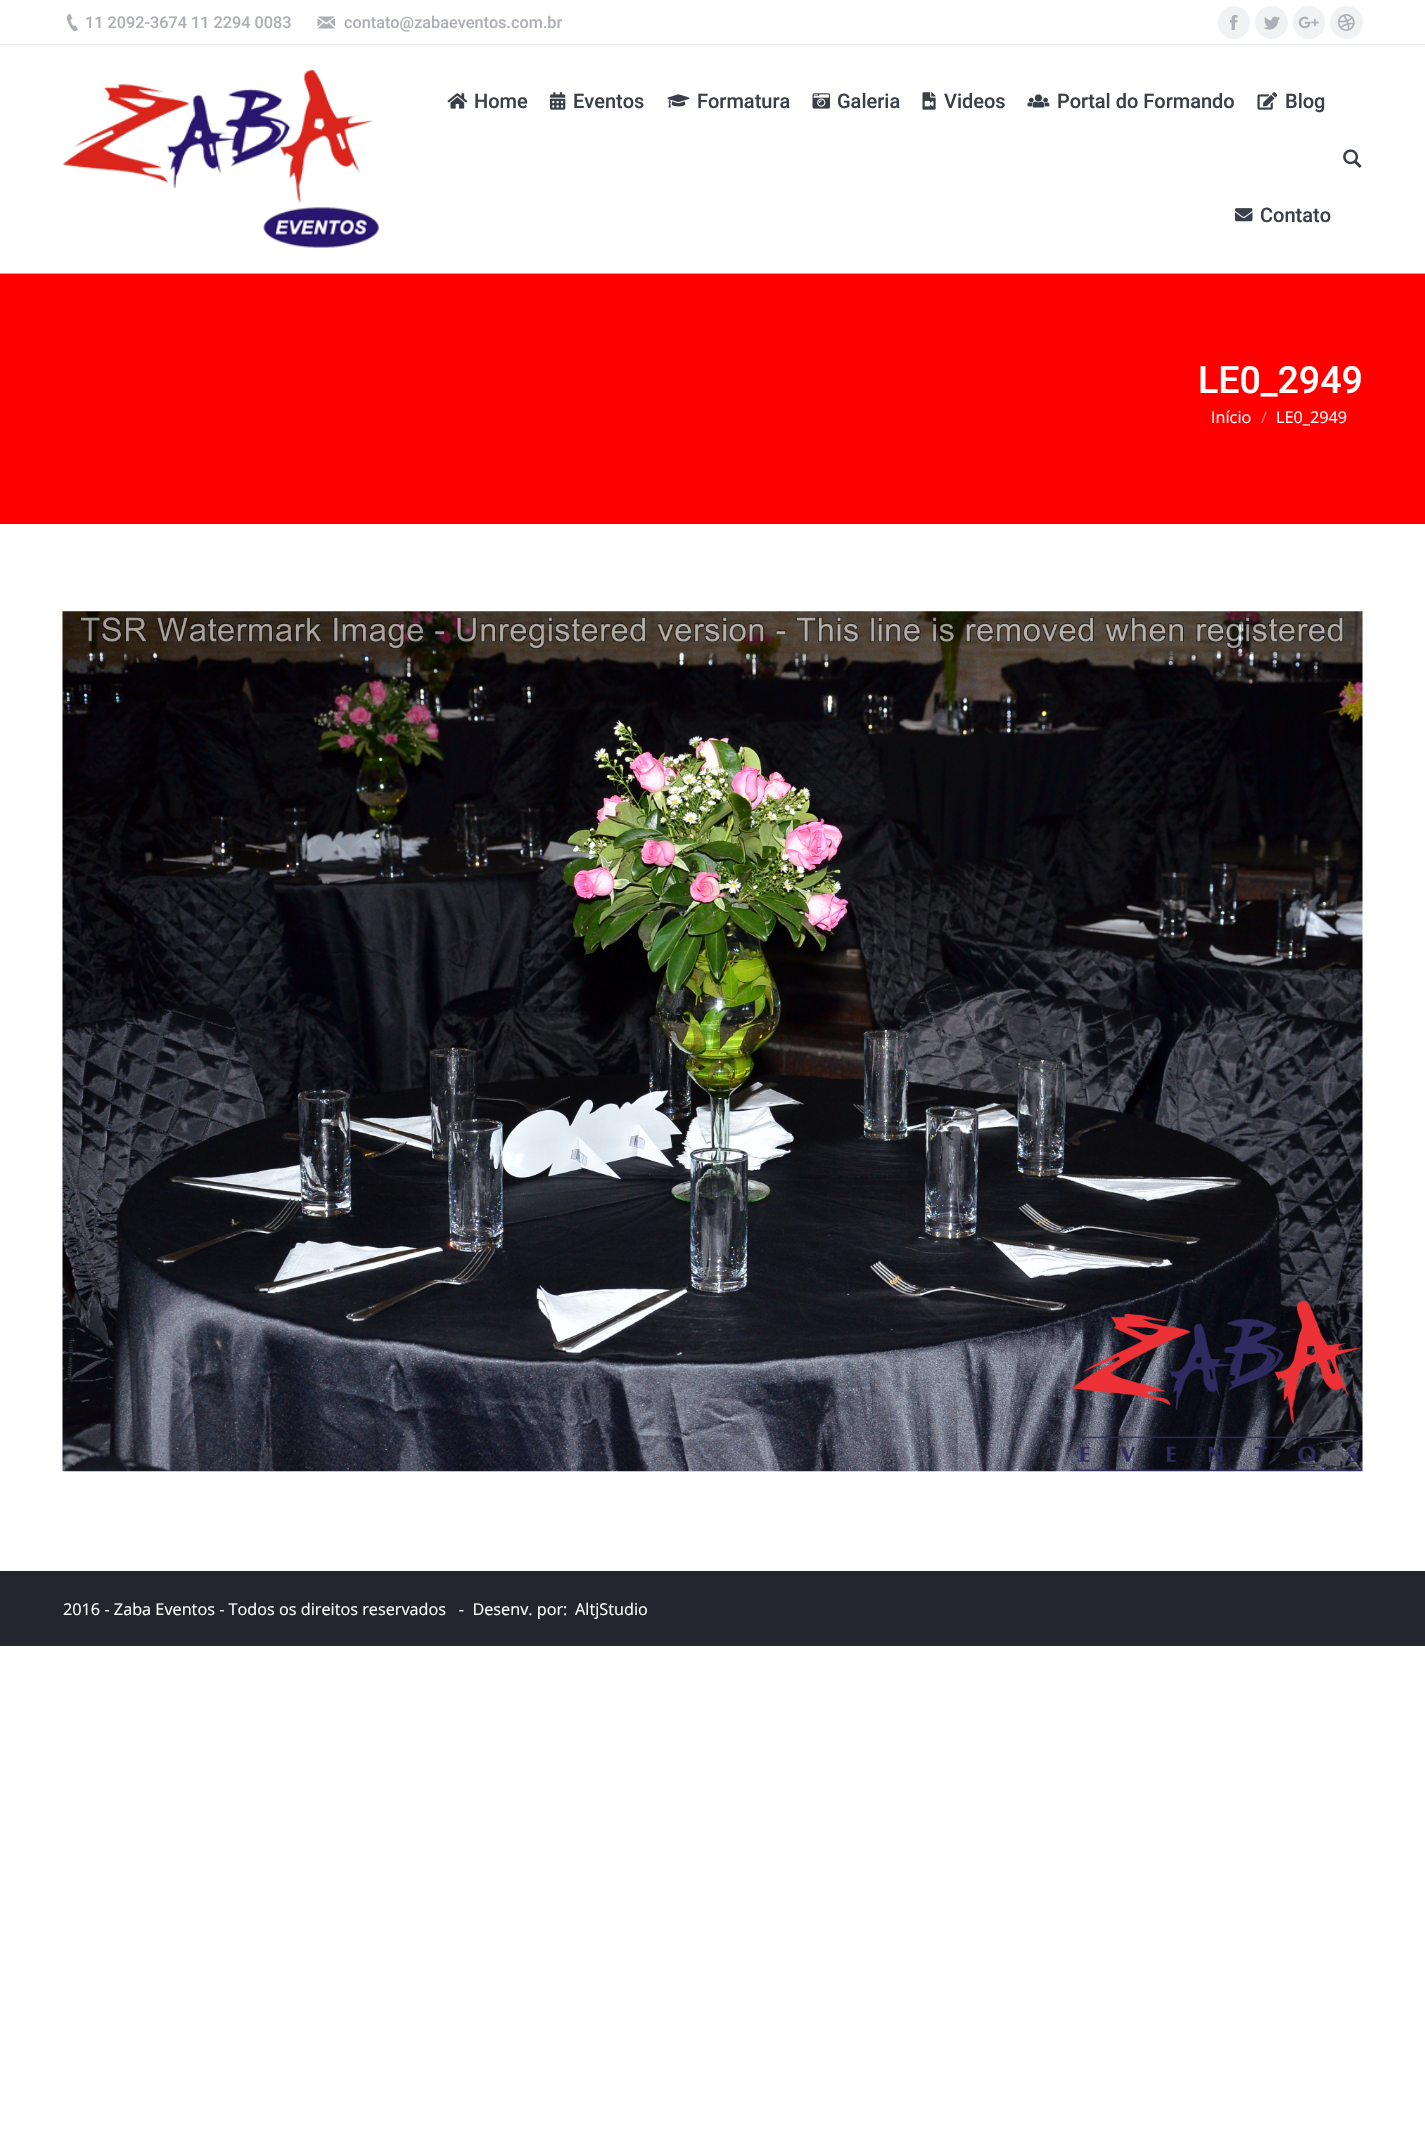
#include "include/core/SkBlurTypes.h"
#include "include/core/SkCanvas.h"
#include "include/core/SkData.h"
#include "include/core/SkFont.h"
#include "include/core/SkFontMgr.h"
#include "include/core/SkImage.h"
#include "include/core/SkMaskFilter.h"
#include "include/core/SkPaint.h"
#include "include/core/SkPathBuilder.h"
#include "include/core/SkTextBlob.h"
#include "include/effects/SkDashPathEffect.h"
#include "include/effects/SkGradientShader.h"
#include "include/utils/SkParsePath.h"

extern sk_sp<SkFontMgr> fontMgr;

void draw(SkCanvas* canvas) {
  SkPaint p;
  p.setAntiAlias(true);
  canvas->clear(SK_ColorWHITE);
  p.setColor(SkColorSetRGB(179, 179, 179));
  canvas->drawRect(SkRect::MakeLTRB(0, 273, 1425, 274), p);
  canvas->drawImageRect(SkImages::DeferredFromEncodedData(SkData::MakeFromFileName("images/1.png")), SkRect::MakeLTRB(66, 14, 78, 32), SkSamplingOptions());
  canvas->drawImageRect(SkImages::DeferredFromEncodedData(SkData::MakeFromFileName("images/2.png")), SkRect::MakeLTRB(317, 16, 335, 29), SkSamplingOptions());
  p.setColor(SkColorSetRGB(241, 242, 243));
  canvas->drawRoundRect(SkRect::MakeLTRB(1218, 6, 1250, 39), 16, 16, p);
  canvas->drawImageRect(SkImages::DeferredFromEncodedData(SkData::MakeFromFileName("images/3.png")), SkRect::MakeLTRB(1230, 15, 1238, 30), SkSamplingOptions());
  canvas->drawCircle(1271.5f, 22.5f, 16.5f, p);
  canvas->drawImageRect(SkImages::DeferredFromEncodedData(SkData::MakeFromFileName("images/4.png")), SkRect::MakeLTRB(1264, 16, 1280, 30), SkSamplingOptions());
  canvas->drawRoundRect(SkRect::MakeLTRB(1293, 6, 1325, 39), 16, 16, p);
  canvas->drawImageRect(SkImages::DeferredFromEncodedData(SkData::MakeFromFileName("images/5.png")), SkRect::MakeLTRB(1298, 16, 1319, 29), SkSamplingOptions());
  canvas->drawCircle(1346.5f, 22.5f, 16.5f, p);
  canvas->drawImageRect(SkImages::DeferredFromEncodedData(SkData::MakeFromFileName("images/6.png")), SkRect::MakeLTRB(1337, 14, 1355, 31), SkSamplingOptions());
  p.setColor(SkColorSetRGB(230, 231, 233));
  canvas->drawRect(SkRect::MakeLTRB(0, 44, 1425, 45), p);
  canvas->drawImageRect(SkImages::DeferredFromEncodedData(SkData::MakeFromFileName("images/7.png")), SkRect::MakeLTRB(62, 70, 379, 248), SkSamplingOptions());
  canvas->drawImageRect(SkImages::DeferredFromEncodedData(SkData::MakeFromFileName("images/8.png")), SkRect::MakeLTRB(447, 93, 468, 109), SkSamplingOptions());
  canvas->drawImageRect(SkImages::DeferredFromEncodedData(SkData::MakeFromFileName("images/9.png")), SkRect::MakeLTRB(550, 92, 566, 110), SkSamplingOptions());
  canvas->drawImageRect(SkImages::DeferredFromEncodedData(SkData::MakeFromFileName("images/10.png")), SkRect::MakeLTRB(667, 94, 690, 108), SkSamplingOptions());
  canvas->drawImageRect(SkImages::DeferredFromEncodedData(SkData::MakeFromFileName("images/11.png")), SkRect::MakeLTRB(812, 93, 830, 109), SkSamplingOptions());
  canvas->drawImageRect(SkImages::DeferredFromEncodedData(SkData::MakeFromFileName("images/12.png")), SkRect::MakeLTRB(922, 92, 936, 110), SkSamplingOptions());
  canvas->drawImageRect(SkImages::DeferredFromEncodedData(SkData::MakeFromFileName("images/13.png")), SkRect::MakeLTRB(1027, 94, 1050, 108), SkSamplingOptions());
  canvas->drawImageRect(SkImages::DeferredFromEncodedData(SkData::MakeFromFileName("images/14.png")), SkRect::MakeLTRB(1257, 92, 1278, 110), SkSamplingOptions());
  canvas->drawImageRect(SkImages::DeferredFromEncodedData(SkData::MakeFromFileName("images/15.png")), SkRect::MakeLTRB(1235, 208, 1253, 222), SkSamplingOptions());
  canvas->drawImageRect(SkImages::DeferredFromEncodedData(SkData::MakeFromFileName("images/16.png")), SkRect::MakeLTRB(1343, 149, 1362, 168), SkSamplingOptions());
  p.setColor(SkColorSetRGB(255, 0, 0));
  canvas->drawRect(SkRect::MakeLTRB(0, 274, 1425, 524), p);
  canvas->drawImageRect(SkImages::DeferredFromEncodedData(SkData::MakeFromFileName("images/17.png")), SkRect::MakeLTRB(62, 611, 1363, 1472), SkSamplingOptions());
  p.setColor(SkColorSetRGB(35, 38, 45));
  canvas->drawRect(SkRect::MakeLTRB(0, 1571, 1425, 1646), p);
  SkFont font1(fontMgr->matchFamilyStyle("Roboto", SkFontStyle(500, SkFontStyle::kNormal_Width, SkFontStyle::kUpright_Slant)), 16.25f);
  font1.setSubpixel(true);
  p.setColor(SkColorSetRGB(173, 176, 182));
  canvas->drawString("11 2092-3674 11 2294 0083", 85, 28, font1, p);
  canvas->drawString("contato@zabaeventos.com.br", 344, 28, font1, p);
  SkFont font2(fontMgr->matchFamilyStyle("Roboto", SkFontStyle(500, SkFontStyle::kNormal_Width, SkFontStyle::kUpright_Slant)), 20);
  font2.setSubpixel(true);
  p.setColor(SkColorSetRGB(59, 63, 74));
  canvas->drawString("Home", 474, 108, font2, p);
  canvas->drawString("Eventos", 573, 108, font2, p);
  canvas->drawString("Formatura", 697, 108, font2, p);
  canvas->drawString("Galeria", 837, 108, font2, p);
  canvas->drawString("Videos", 944, 108, font2, p);
  canvas->drawString("Portal do Formando", 1057, 108, font2, p);
  canvas->drawString("Blog", 1285, 108, font2, p);
  canvas->drawString("Contato", 1260, 222, font2, p);
  SkFont font3(fontMgr->matchFamilyStyle("Roboto", SkFontStyle(500, SkFontStyle::kNormal_Width, SkFontStyle::kUpright_Slant)), 37.5f);
  font3.setSubpixel(true);
  p.setColor(SK_ColorWHITE);
  canvas->drawString("LE0_2949", 1198, 393, font3, p);
  SkFont font4(fontMgr->matchFamilyStyle("Open Sans", SkFontStyle::Normal()), 16.25f);
  font4.setSubpixel(true);
  canvas->drawString("Início", 1211, 423, font4, p);
  p.setColor(SkColorSetRGB(255, 128, 128));
  canvas->drawString("/", 1261, 423, font4, p);
  p.setColor(SK_ColorWHITE);
  canvas->drawString("LE0_2949", 1276, 423, font4, p);
  canvas->drawString("2016 - Zaba Eventos - Todos os direitos reservados   -  Desenv. por:", 63, 1615, font4, p);
  canvas->drawString("AltjStudio", 575, 1615, font4, p);
}
